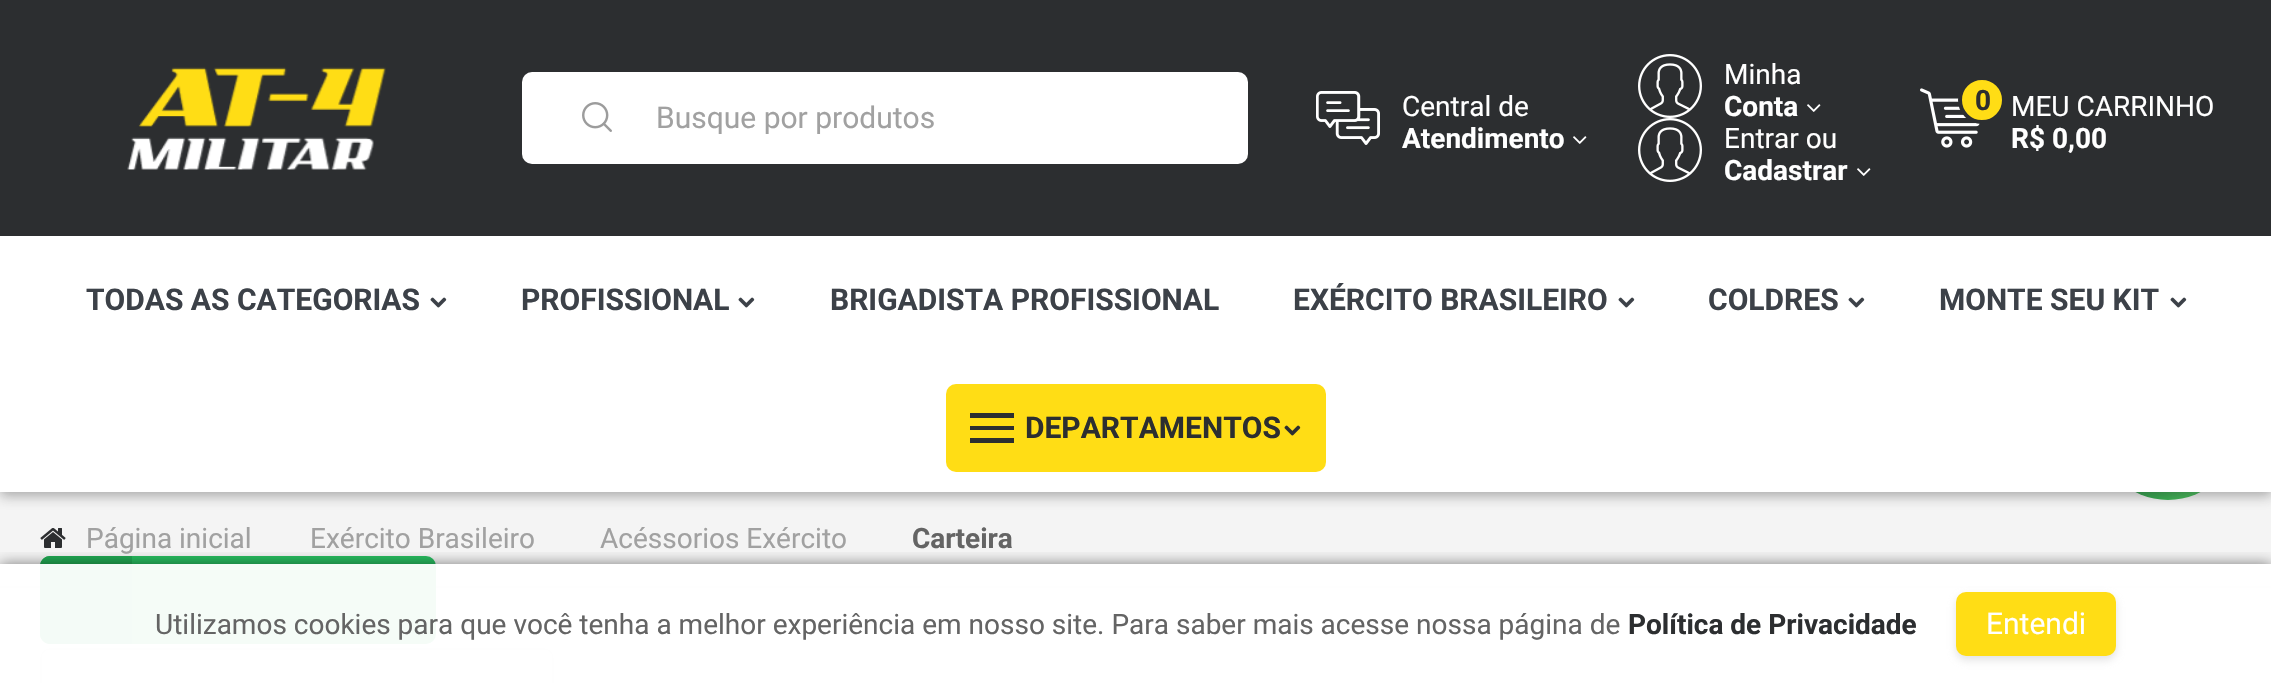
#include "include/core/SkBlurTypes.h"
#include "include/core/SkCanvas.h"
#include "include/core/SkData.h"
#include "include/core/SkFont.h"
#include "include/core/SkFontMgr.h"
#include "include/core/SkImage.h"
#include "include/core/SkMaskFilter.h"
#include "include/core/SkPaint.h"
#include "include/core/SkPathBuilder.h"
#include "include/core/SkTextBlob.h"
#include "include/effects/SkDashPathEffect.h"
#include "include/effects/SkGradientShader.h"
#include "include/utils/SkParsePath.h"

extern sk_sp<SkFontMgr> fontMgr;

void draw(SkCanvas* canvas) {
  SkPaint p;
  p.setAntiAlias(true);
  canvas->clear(SK_ColorWHITE);
  p.setColor(SkColorSetARGB(31, 137, 137, 137));
  p.setMaskFilter(SkMaskFilter::MakeBlur(kNormal_SkBlurStyle, 4));
  canvas->drawRect(SkRect::MakeLTRB(0, 494, 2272, 590), p);
  p.setMaskFilter(nullptr);
  p.setColor(SkColorSetRGB(244, 244, 244));
  canvas->drawRect(SkRect::MakeLTRB(0, 492, 2271, 586), p);
  {
    const SkColor colors[] = {SkColorSetRGB(32, 145, 66), SkColorSetRGB(86, 210, 99)};
    const float stops[] = {0, 1};
    const SkPoint ends[] = {{2096, 428}, {2240, 428}};
    p.setShader(SkGradientShader::MakeLinear(ends, colors, stops, 2, SkTileMode::kClamp));
    p.setAlpha(255);
  }
  canvas->drawCircle(2168, 428, 72, p);
  p.setShader(nullptr);
  p.setColor(SkColorSetARGB(97, 43, 43, 43));
  p.setMaskFilter(SkMaskFilter::MakeBlur(kNormal_SkBlurStyle, 6));
  canvas->drawRect(SkRect::MakeLTRB(0, 4, 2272, 496), p);
  p.setMaskFilter(nullptr);
  p.setColor(SkColorSetRGB(44, 46, 48));
  canvas->drawRect(SkRect::MakeLTRB(0, 0, 2271, 236), p);
  canvas->drawImageRect(SkImages::DeferredFromEncodedData(SkData::MakeFromFileName("images/1.png")), SkRect::MakeLTRB(127, 67, 386, 170), SkSamplingOptions());
  p.setColor(SK_ColorWHITE);
  canvas->drawRoundRect(SkRect::MakeLTRB(522, 72, 1248, 164), 10, 10, p);
  canvas->drawImageRect(SkImages::DeferredFromEncodedData(SkData::MakeFromFileName("images/2.png")), SkRect::MakeLTRB(582, 102, 612, 132), SkSamplingOptions());
  canvas->drawImageRect(SkImages::DeferredFromEncodedData(SkData::MakeFromFileName("images/3.png")), SkRect::MakeLTRB(1316, 91, 1380, 145), SkSamplingOptions());
  canvas->drawImageRect(SkImages::DeferredFromEncodedData(SkData::MakeFromFileName("images/4.png")), SkRect::MakeLTRB(1573, 136, 1587, 144), SkSamplingOptions());
  canvas->drawImageRect(SkImages::DeferredFromEncodedData(SkData::MakeFromFileName("images/5.png")), SkRect::MakeLTRB(1638, 54, 1702, 118), SkSamplingOptions());
  canvas->drawImageRect(SkImages::DeferredFromEncodedData(SkData::MakeFromFileName("images/4.png")), SkRect::MakeLTRB(1807, 104, 1821, 112), SkSamplingOptions());
  canvas->drawImageRect(SkImages::DeferredFromEncodedData(SkData::MakeFromFileName("images/5.png")), SkRect::MakeLTRB(1638, 118, 1702, 182), SkSamplingOptions());
  canvas->drawImageRect(SkImages::DeferredFromEncodedData(SkData::MakeFromFileName("images/4.png")), SkRect::MakeLTRB(1857, 168, 1871, 176), SkSamplingOptions());
  canvas->drawImageRect(SkImages::DeferredFromEncodedData(SkData::MakeFromFileName("images/6.png")), SkRect::MakeLTRB(1920, 88, 1980, 148), SkSamplingOptions());
  p.setColor(SkColorSetRGB(255, 221, 21));
  canvas->drawCircle(1982, 100, 22, p);
  p.setStyle(SkPaint::kStroke_Style);
  p.setStrokeWidth(4);
  p.setColor(SkColorSetRGB(44, 46, 48));
  canvas->drawCircle(1982, 100, 22, p);
  p.setStyle(SkPaint::kFill_Style);
  p.setColor(SK_ColorWHITE);
  canvas->drawRect(SkRect::MakeLTRB(0, 236, 2271, 492), p);
  canvas->drawImageRect(SkImages::DeferredFromEncodedData(SkData::MakeFromFileName("images/7.png")), SkRect::MakeLTRB(430, 297, 447, 308), SkSamplingOptions());
  canvas->drawImageRect(SkImages::DeferredFromEncodedData(SkData::MakeFromFileName("images/7.png")), SkRect::MakeLTRB(738, 297, 755, 308), SkSamplingOptions());
  canvas->drawImageRect(SkImages::DeferredFromEncodedData(SkData::MakeFromFileName("images/7.png")), SkRect::MakeLTRB(1618, 297, 1635, 308), SkSamplingOptions());
  canvas->drawImageRect(SkImages::DeferredFromEncodedData(SkData::MakeFromFileName("images/7.png")), SkRect::MakeLTRB(1848, 297, 1865, 308), SkSamplingOptions());
  canvas->drawImageRect(SkImages::DeferredFromEncodedData(SkData::MakeFromFileName("images/7.png")), SkRect::MakeLTRB(2170, 297, 2187, 308), SkSamplingOptions());
  p.setColor(SkColorSetRGB(255, 221, 21));
  canvas->drawRoundRect(SkRect::MakeLTRB(946, 384, 1326, 472), 10, 10, p);
  p.setColor(SkColorSetRGB(44, 46, 48));
  canvas->drawPath(SkPathBuilder().moveTo(970, 443).lineTo(1014, 443).lineTo(1014, 438).lineTo(970, 438).close().moveTo(970, 430).lineTo(1014, 430).lineTo(1014, 426).lineTo(970, 426).close().moveTo(970, 413).lineTo(970, 418).lineTo(1014, 418).lineTo(1014, 413).close().detach(), p);
  canvas->drawImageRect(SkImages::DeferredFromEncodedData(SkData::MakeFromFileName("images/8.png")), SkRect::MakeLTRB(1284, 425, 1301, 436), SkSamplingOptions());
  p.setColor(SkColorSetRGB(230, 230, 230));
  canvas->drawRect(SkRect::MakeLTRB(0, 586, 2271, 588), p);
  canvas->drawImageRect(SkImages::DeferredFromEncodedData(SkData::MakeFromFileName("images/9.png")), SkRect::MakeLTRB(40, 528, 66, 548), SkSamplingOptions());
  p.setStyle(SkPaint::kStroke_Style);
  p.setStrokeWidth(2);
  p.setColor(SkColorSetRGB(235, 235, 235));
  canvas->drawRoundRect(SkRect::MakeLTRB(41, 649, 553, 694), 9, 9, p);
  p.setStyle(SkPaint::kFill_Style);
  p.setColor(SkColorSetRGB(40, 189, 96));
  canvas->drawRoundRect(SkRect::MakeLTRB(40, 556, 436, 644), 10, 10, p);
  p.setColor(SkColorSetRGB(33, 169, 83));
  canvas->drawPath(SkPathBuilder().moveTo(50, 556).lineTo(132, 556).lineTo(132, 644).lineTo(50, 644).cubicTo(44.5f, 644, 40, 639.5f, 40, 634).lineTo(40, 566).cubicTo(40, 560.5f, 44.5f, 556, 50, 556).close().detach(), p);
  canvas->save();
  canvas->clipRect(SkRect::MakeLTRB(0, 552, 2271, 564));
  p.setColor(SkColorSetARGB(128, 0, 0, 0));
  p.setMaskFilter(SkMaskFilter::MakeBlur(kNormal_SkBlurStyle, 7));
  canvas->drawRect(SkRect::MakeLTRB(0, 564, 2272, 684), p);
  p.setMaskFilter(nullptr);
  canvas->restore();
  p.setColor(SkColorSetARGB(242, 255, 255, 255));
  canvas->drawRect(SkRect::MakeLTRB(0, 564, 2271, 683), p);
  p.setColor(SkColorSetARGB(140, 203, 203, 203));
  p.setMaskFilter(SkMaskFilter::MakeBlur(kNormal_SkBlurStyle, 4));
  canvas->drawRoundRect(SkRect::MakeLTRB(1956, 596, 2116, 660), 10, 10, p);
  p.setMaskFilter(nullptr);
  p.setColor(SkColorSetRGB(255, 221, 21));
  canvas->drawRoundRect(SkRect::MakeLTRB(1956, 592, 2116, 656), 10, 10, p);
  SkFont font1(fontMgr->matchFamilyStyle("Roboto", SkFontStyle::Normal()), 30);
  font1.setSubpixel(true);
  p.setColor(SkColorSetRGB(161, 161, 161));
  canvas->drawString("Busque por produtos", 656, 128, font1, p);
  SkFont font2(fontMgr->matchFamilyStyle("Roboto", SkFontStyle::Normal()), 28);
  font2.setSubpixel(true);
  p.setColor(SK_ColorWHITE);
  canvas->drawString("Central de", 1402, 116, font2, p);
  SkFont font3(fontMgr->matchFamilyStyle("Roboto", SkFontStyle::Bold()), 28);
  font3.setSubpixel(true);
  canvas->drawString("Atendimento", 1402, 148, font3, p);
  canvas->drawString("Minha", 1724, 84, font2, p);
  canvas->drawString("Conta", 1724, 116, font3, p);
  canvas->drawString("Entrar ou", 1724, 148, font2, p);
  canvas->drawString("Cadastrar", 1724, 180, font3, p);
  p.setColor(SkColorSetRGB(44, 46, 48));
  canvas->drawString("0", 1975, 110, font3, p);
  p.setColor(SK_ColorWHITE);
  canvas->drawString("MEU CARRINHO", 2011, 116, font2, p);
  canvas->drawString("R$ 0,00", 2011, 148, font3, p);
  SkFont font4(fontMgr->matchFamilyStyle("Roboto", SkFontStyle::Bold()), 30);
  font4.setSubpixel(true);
  p.setColor(SkColorSetRGB(60, 65, 72));
  canvas->drawString("TODAS AS CATEGORIAS", 86, 310, font4, p);
  canvas->drawString("PROFISSIONAL", 521, 310, font4, p);
  canvas->drawString("BRIGADISTA PROFISSIONAL", 830, 310, font4, p);
  canvas->drawString("EXÉRCITO BRASILEIRO", 1293, 310, font4, p);
  canvas->drawString("COLDRES", 1708, 310, font4, p);
  canvas->drawString("MONTE SEU KIT", 1939, 310, font4, p);
  p.setColor(SkColorSetRGB(44, 46, 48));
  canvas->drawString("DEPARTAMENTOS", 1025, 438, font4, p);
  p.setColor(SkColorSetRGB(161, 161, 161));
  canvas->drawString("Página inicial", 86, 548, font2, p);
  canvas->drawString("Exército Brasileiro", 310, 548, font2, p);
  canvas->drawString("Acéssorios Exército", 600, 548, font2, p);
  p.setColor(SkColorSetRGB(100, 100, 100));
  canvas->drawString("Carteira", 912, 548, font3, p);
  canvas->drawString("Utilizamos cookies para que você tenha a melhor experiência em nosso site. Para saber mais acesse nossa página de", 155, 634, font2, p);
  p.setColor(SkColorSetRGB(44, 46, 48));
  canvas->drawString("Política de Privacidade", 1628, 634, font3, p);
  p.setColor(SK_ColorWHITE);
  canvas->drawString("Entendi", 1986, 634, font1, p);
}
